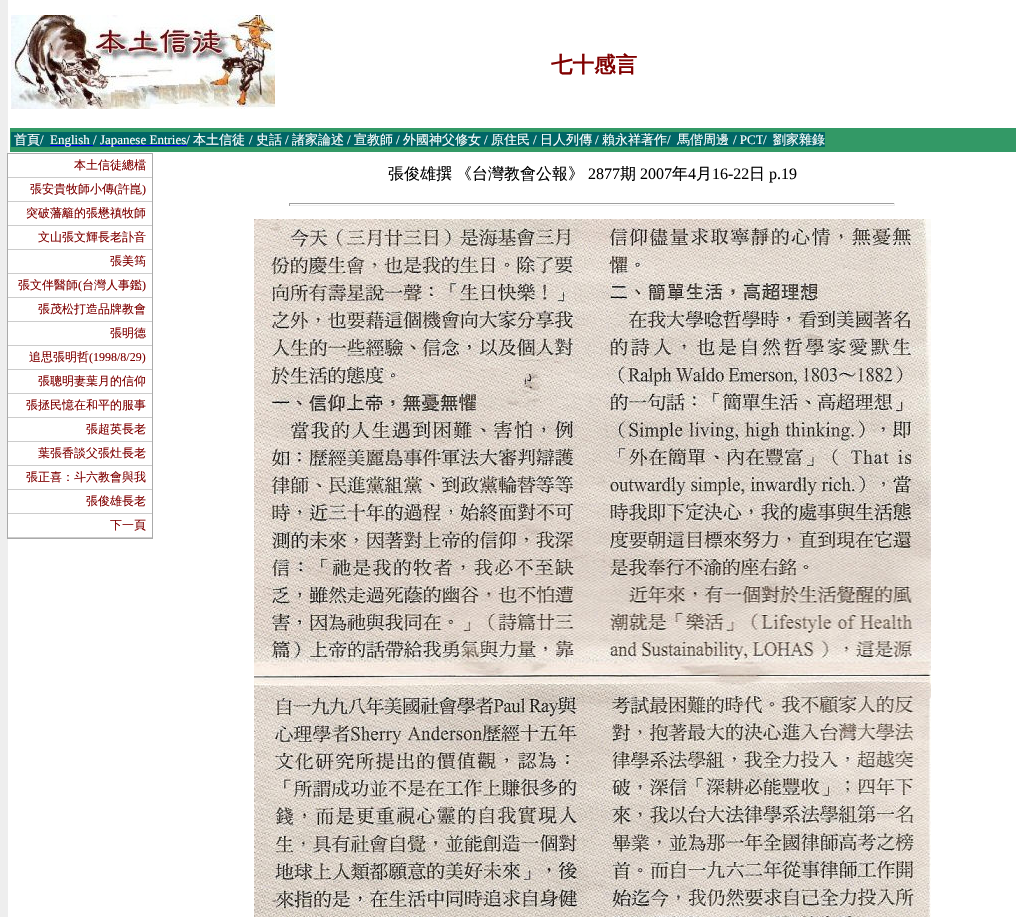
#include "include/core/SkBlurTypes.h"
#include "include/core/SkCanvas.h"
#include "include/core/SkData.h"
#include "include/core/SkFont.h"
#include "include/core/SkFontMgr.h"
#include "include/core/SkImage.h"
#include "include/core/SkMaskFilter.h"
#include "include/core/SkPaint.h"
#include "include/core/SkPathBuilder.h"
#include "include/core/SkTextBlob.h"
#include "include/effects/SkDashPathEffect.h"
#include "include/effects/SkGradientShader.h"
#include "include/utils/SkParsePath.h"

extern sk_sp<SkFontMgr> fontMgr;

void draw(SkCanvas* canvas) {
  SkPaint p;
  p.setAntiAlias(true);
  canvas->clear(SkColorSetRGB(238, 238, 238));
  p.setColor(SK_ColorWHITE);
  canvas->drawRect(SkRect::MakeLTRB(8, 0, 1016, 917), p);
  canvas->drawImageRect(SkImages::DeferredFromEncodedData(SkData::MakeFromFileName("images/1.png")), SkRect::MakeLTRB(11, 15, 275, 109), SkSamplingOptions());
  p.setColor(SkColorSetRGB(51, 153, 102));
  canvas->drawRect(SkRect::MakeLTRB(10, 128, 1016, 152), p);
  p.setColor(SkColorSetRGB(0, 102, 102));
  canvas->drawRect(SkRect::MakeLTRB(11, 132, 763, 147), p);
  p.setColor(SkColorSetRGB(0, 0, 238));
  canvas->drawRect(SkRect::MakeLTRB(50, 145, 93, 146), p);
  canvas->drawRect(SkRect::MakeLTRB(100, 145, 187, 146), p);
  p.setStyle(SkPaint::kStroke_Style);
  p.setStrokeWidth(1);
  p.setColor(SkColorSetRGB(170, 170, 170));
  canvas->drawRect(SkRect::MakeLTRB(7.5f, 153.5f, 152.5f, 538.5f), p);
  p.setStyle(SkPaint::kFill_Style);
  p.setColor(SkColorSetRGB(204, 204, 204));
  canvas->drawRect(SkRect::MakeLTRB(8, 177, 152, 178), p);
  canvas->drawRect(SkRect::MakeLTRB(8, 201, 152, 202), p);
  canvas->drawRect(SkRect::MakeLTRB(8, 225, 152, 226), p);
  canvas->drawRect(SkRect::MakeLTRB(8, 249, 152, 250), p);
  canvas->drawRect(SkRect::MakeLTRB(8, 273, 152, 274), p);
  canvas->drawRect(SkRect::MakeLTRB(8, 297, 152, 298), p);
  canvas->drawRect(SkRect::MakeLTRB(8, 321, 152, 322), p);
  canvas->drawRect(SkRect::MakeLTRB(8, 345, 152, 346), p);
  canvas->drawRect(SkRect::MakeLTRB(8, 369, 152, 370), p);
  canvas->drawRect(SkRect::MakeLTRB(8, 393, 152, 394), p);
  canvas->drawRect(SkRect::MakeLTRB(8, 417, 152, 418), p);
  canvas->drawRect(SkRect::MakeLTRB(8, 441, 152, 442), p);
  canvas->drawRect(SkRect::MakeLTRB(8, 465, 152, 466), p);
  canvas->drawRect(SkRect::MakeLTRB(8, 489, 152, 490), p);
  canvas->drawRect(SkRect::MakeLTRB(8, 513, 152, 514), p);
  canvas->drawRect(SkRect::MakeLTRB(8, 537, 152, 538), p);
  p.setColor(SkColorSetRGB(159, 159, 159));
  canvas->drawRect(SkRect::MakeLTRB(289, 203, 895, 204), p);
  p.setColor(SkColorSetRGB(238, 238, 238));
  canvas->drawRect(SkRect::MakeLTRB(894, 203, 895, 206), p);
  canvas->drawRect(SkRect::MakeLTRB(289, 205, 895, 206), p);
  p.setColor(SkColorSetRGB(159, 159, 159));
  canvas->drawRect(SkRect::MakeLTRB(289, 203, 290, 206), p);
  canvas->drawImageRect(SkImages::DeferredFromEncodedData(SkData::MakeFromFileName("images/2.png")), SkRect::MakeLTRB(254, 219, 931, 917), SkSamplingOptions());
  SkFont font1(fontMgr->matchFamilyStyle("WenQuanYi Zen Hei", SkFontStyle::Bold()), 21.5f);
  font1.setSubpixel(true);
  p.setColor(SkColorSetRGB(128, 0, 0));
  canvas->drawString("七十感言", 551, 72, font1, p);
  SkFont font2(fontMgr->matchFamilyStyle("WenQuanYi Zen Hei", SkFontStyle(500, SkFontStyle::kNormal_Width, SkFontStyle::kUpright_Slant)), 13);
  font2.setSubpixel(true);
  p.setColor(SK_ColorWHITE);
  canvas->drawString("首頁", 14, 144, font2, p);
  SkFont font3(fontMgr->matchFamilyStyle("Liberation Serif", SkFontStyle::Normal()), 13);
  font3.setSubpixel(true);
  canvas->drawString("/", 40, 144, font3, p);
  canvas->drawString("English /", 50, 144, font3, p);
  canvas->drawString("Japanese Entries/", 100, 144, font3, p);
  canvas->drawString("本土信徒", 193, 144, font2, p);
  canvas->drawString("/", 249, 144, font3, p);
  canvas->drawString("史話", 256, 144, font2, p);
  canvas->drawString("/", 285, 144, font3, p);
  canvas->drawString("諸家論述", 292, 144, font2, p);
  canvas->drawString("/", 347, 144, font3, p);
  canvas->drawString("宣教師", 354, 144, font2, p);
  canvas->drawString("/", 396, 144, font3, p);
  canvas->drawString("外國神父修女", 403, 144, font2, p);
  canvas->drawString("/", 484, 144, font3, p);
  canvas->drawString("原住民", 491, 144, font2, p);
  canvas->drawString("/", 533, 144, font3, p);
  canvas->drawString("日人列傳", 540, 144, font2, p);
  canvas->drawString("/", 595, 144, font3, p);
  canvas->drawString("賴永祥著作", 602, 144, font2, p);
  canvas->drawString("/", 667, 144, font3, p);
  canvas->drawString("馬偕周邊", 677, 144, font2, p);
  canvas->drawString("/ PCT", 733, 144, font3, p);
  p.setColor(SkColorSetRGB(0, 102, 102));
  canvas->drawRect(SkRect::MakeLTRB(763, 132, 825, 147), p);
  p.setColor(SK_ColorWHITE);
  canvas->drawString("劉家雜錄", 773, 144, font2, p);
  canvas->drawString("/", 763, 144, font3, p);
  SkFont font4(fontMgr->matchFamilyStyle("WenQuanYi Zen Hei", SkFontStyle(500, SkFontStyle::kNormal_Width, SkFontStyle::kUpright_Slant)), 12);
  font4.setSubpixel(true);
  p.setColor(SkColorSetRGB(128, 0, 0));
  canvas->drawString("本土信徒總檔", 74, 169, font4, p);
  canvas->drawString("張安貴牧師小傳", 30, 193, font4, p);
  SkFont font5(fontMgr->matchFamilyStyle("Liberation Serif", SkFontStyle::Normal()), 12);
  font5.setSubpixel(true);
  canvas->drawString("(", 114, 193, font5, p);
  canvas->drawString("許崑", 118, 193, font4, p);
  canvas->drawString(")", 142, 193, font5, p);
  canvas->drawString("突破藩籬的張懋禛牧師", 26, 217, font4, p);
  canvas->drawString("文山張文輝長老訃音", 38, 241, font4, p);
  canvas->drawString("張美筠", 110, 265, font4, p);
  canvas->drawString("張文伴醫師", 18, 289, font4, p);
  canvas->drawString("(", 78, 289, font5, p);
  canvas->drawString("台灣人事鑑", 82, 289, font4, p);
  canvas->drawString(")", 142, 289, font5, p);
  canvas->drawString("張茂松打造品牌教會", 38, 313, font4, p);
  canvas->drawString("張明德", 110, 337, font4, p);
  canvas->drawString("追思張明哲", 29, 361, font4, p);
  canvas->drawString("(1998/8/29)", 89, 361, font5, p);
  canvas->drawString("張聰明妻葉月的信仰", 38, 385, font4, p);
  canvas->drawString("張拯民憶在和平的服事", 26, 409, font4, p);
  canvas->drawString("張超英長老", 86, 433, font4, p);
  canvas->drawString("葉張香談父張灶長老", 38, 457, font4, p);
  canvas->drawString("張正喜：斗六教會與我", 26, 481, font4, p);
  canvas->drawString("張俊雄長老", 86, 505, font4, p);
  canvas->drawString("下一頁", 110, 529, font4, p);
  SkFont font6(fontMgr->matchFamilyStyle("WenQuanYi Zen Hei", SkFontStyle(500, SkFontStyle::kNormal_Width, SkFontStyle::kUpright_Slant)), 16);
  font6.setSubpixel(true);
  p.setColor(SK_ColorBLACK);
  canvas->drawString("張俊雄撰", 388, 179, font6, p);
  canvas->drawString("《台灣教會公報》", 456, 179, font6, p);
  SkFont font7(fontMgr->matchFamilyStyle("Liberation Serif", SkFontStyle::Normal()), 16);
  font7.setSubpixel(true);
  canvas->drawString("2877", 588, 179, font7, p);
  canvas->drawString("期", 620, 179, font6, p);
  canvas->drawString("2007", 640, 179, font7, p);
  canvas->drawString("年", 672, 179, font6, p);
  canvas->drawString("4", 688, 179, font7, p);
  canvas->drawString("月", 696, 179, font6, p);
  canvas->drawString("16-22", 712, 179, font7, p);
  canvas->drawString("日", 749, 179, font6, p);
  canvas->drawString("p.19", 769, 179, font7, p);
}
